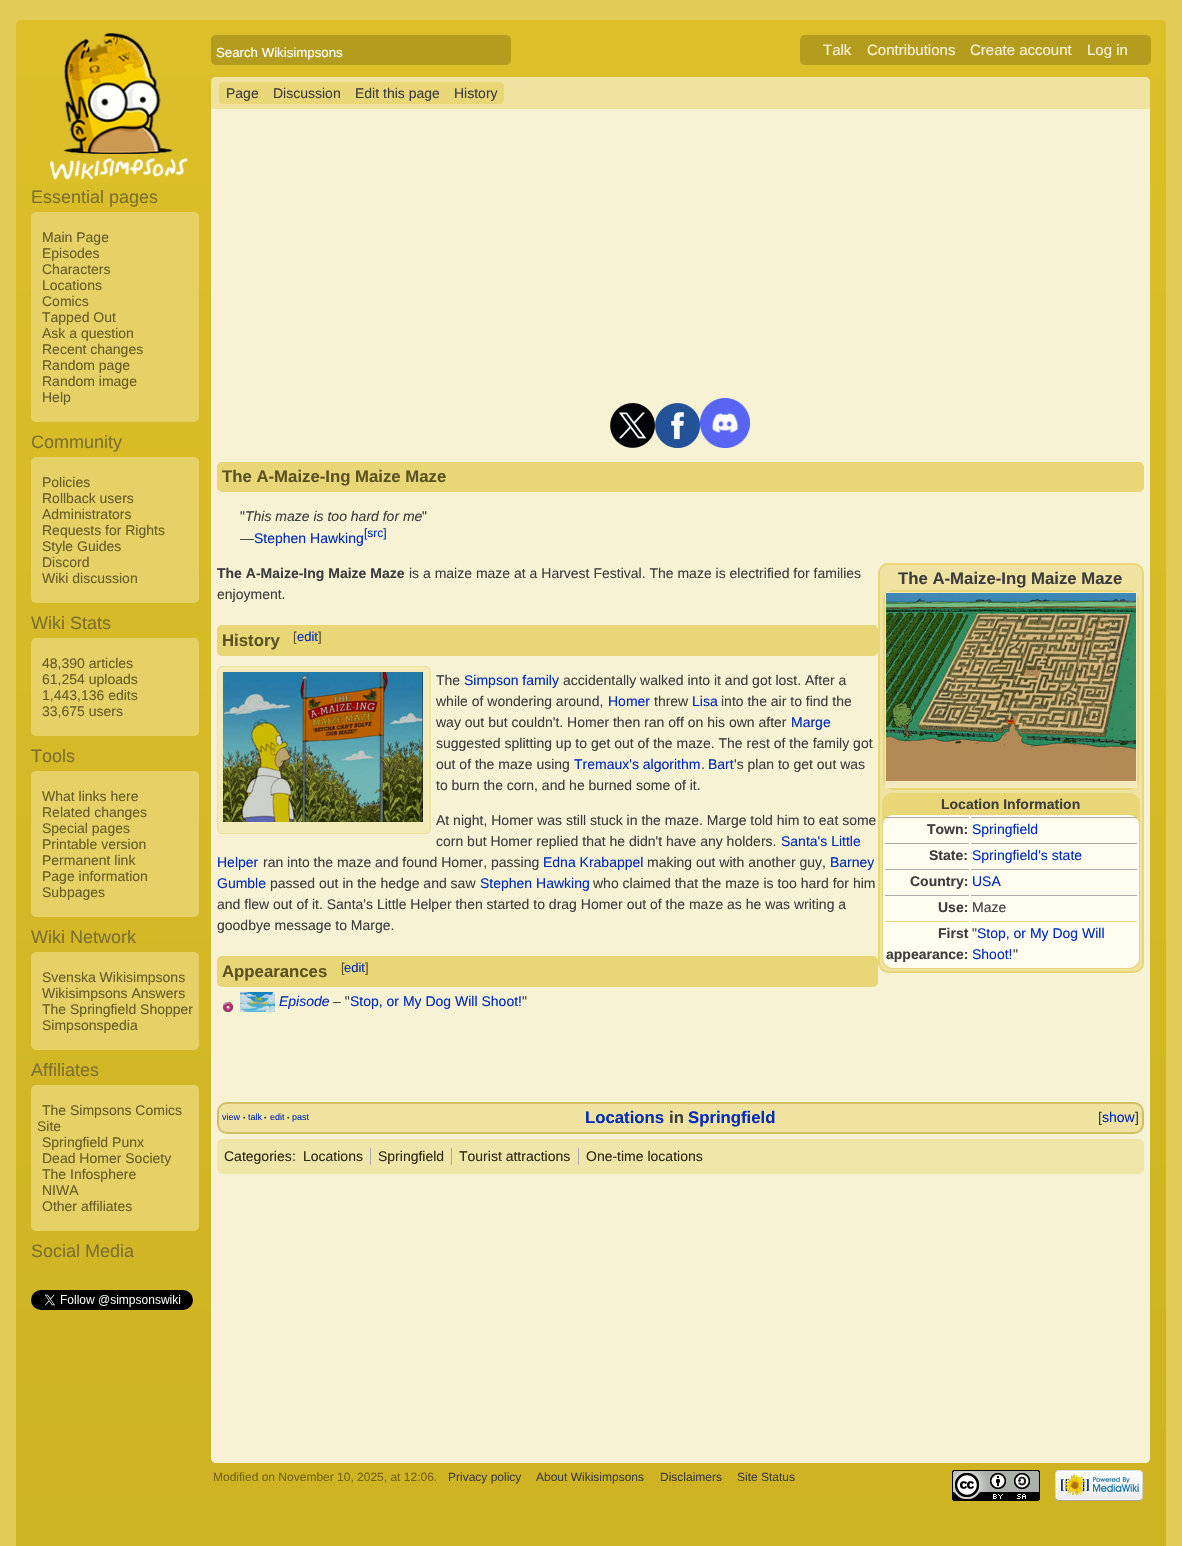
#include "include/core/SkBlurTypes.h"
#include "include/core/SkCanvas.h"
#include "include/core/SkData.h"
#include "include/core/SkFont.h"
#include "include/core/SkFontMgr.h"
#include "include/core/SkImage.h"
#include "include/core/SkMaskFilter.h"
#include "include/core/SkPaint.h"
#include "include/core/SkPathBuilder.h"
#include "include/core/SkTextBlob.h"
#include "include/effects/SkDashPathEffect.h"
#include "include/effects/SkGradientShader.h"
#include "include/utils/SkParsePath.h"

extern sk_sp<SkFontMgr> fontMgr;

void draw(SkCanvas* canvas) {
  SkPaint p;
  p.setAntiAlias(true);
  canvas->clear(SkColorSetRGB(227, 204, 85));
  {
    const SkColor colors[] = {SkColorSetRGB(220, 191, 41), SkColorSetRGB(202, 175, 33)};
    const float stops[] = {0, 1};
    const SkPoint ends[] = {{591, 20}, {591, 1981}};
    p.setShader(SkGradientShader::MakeLinear(ends, colors, stops, 2, SkTileMode::kClamp));
    p.setAlpha(255);
  }
  canvas->drawRoundRect(SkRect::MakeLTRB(16, 20, 1166, 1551), 5, 5, p);
  p.setShader(nullptr);
  p.setColor(SkColorSetRGB(180, 156, 30));
  canvas->drawRoundRect(SkRect::MakeLTRB(211, 35, 511, 65), 5, 5, p);
  canvas->drawRoundRect(SkRect::MakeLTRB(800, 35, 1151, 65), 5, 5, p);
  canvas->drawImageRect(SkImages::DeferredFromEncodedData(SkData::MakeFromFileName("images/1.png")), SkRect::MakeLTRB(49, 33, 188, 180), SkSamplingOptions());
  p.setColor(SkColorSetRGB(230, 209, 102));
  canvas->drawRoundRect(SkRect::MakeLTRB(31, 212, 199, 422), 5, 5, p);
  canvas->drawRoundRect(SkRect::MakeLTRB(31, 457, 199, 603), 5, 5, p);
  canvas->drawRoundRect(SkRect::MakeLTRB(31, 638, 199, 736), 5, 5, p);
  canvas->drawRoundRect(SkRect::MakeLTRB(31, 771, 199, 917), 5, 5, p);
  canvas->drawRoundRect(SkRect::MakeLTRB(31, 952, 199, 1050), 5, 5, p);
  canvas->drawRoundRect(SkRect::MakeLTRB(31, 1085, 199, 1231), 5, 5, p);
  canvas->drawImageRect(SkImages::DeferredFromEncodedData(SkData::MakeFromFileName("images/2.png")), SkRect::MakeLTRB(31, 1290, 193, 1310), SkSamplingOptions());
  p.setColor(SkColorSetRGB(240, 227, 162));
  canvas->drawPath(SkPathBuilder().moveTo(216, 77).lineTo(1145, 77).cubicTo(1148, 77, 1150, 79, 1150, 82).lineTo(1150, 109).lineTo(211, 109).lineTo(211, 82).cubicTo(211, 79, 213, 77, 216, 77).close().detach(), p);
  p.setColor(SkColorSetRGB(233, 214, 119));
  canvas->drawPath(SkPathBuilder().moveTo(224, 82).lineTo(266, 82).lineTo(266, 104).lineTo(224, 104).cubicTo(221, 104, 219, 102, 219, 99).lineTo(219, 87).cubicTo(219, 84, 221, 82, 224, 82).close().detach(), p);
  canvas->drawRect(SkRect::MakeLTRB(266, 82, 447, 104), p);
  canvas->drawPath(SkPathBuilder().moveTo(447, 82).lineTo(499, 82).cubicTo(502, 82, 504, 84, 504, 87).lineTo(504, 99).cubicTo(504, 102, 502, 104, 499, 104).lineTo(447, 104).close().detach(), p);
  p.setColor(SkColorSetRGB(248, 242, 213));
  canvas->drawPath(SkPathBuilder().moveTo(211, 109).lineTo(1150, 109).lineTo(1150, 1458).cubicTo(1150, 1461, 1148, 1463, 1145, 1463).lineTo(216, 1463).cubicTo(213, 1463, 211, 1461, 211, 1458).close().detach(), p);
  canvas->drawImageRect(SkImages::DeferredFromEncodedData(SkData::MakeFromFileName("images/3.png")), SkRect::MakeLTRB(610, 403, 655, 448), SkSamplingOptions());
  canvas->drawImageRect(SkImages::DeferredFromEncodedData(SkData::MakeFromFileName("images/4.png")), SkRect::MakeLTRB(655, 403, 700, 448), SkSamplingOptions());
  canvas->drawImageRect(SkImages::DeferredFromEncodedData(SkData::MakeFromFileName("images/5.png")), SkRect::MakeLTRB(700, 398, 750, 448), SkSamplingOptions());
  p.setColor(SkColorSetRGB(233, 214, 119));
  canvas->drawRoundRect(SkRect::MakeLTRB(217, 462, 1144, 492), 5, 5, p);
  p.setColor(SkColorSetRGB(240, 227, 162));
  canvas->drawRoundRect(SkRect::MakeLTRB(879, 564, 1143, 972), 9, 9, p);
  p.setStyle(SkPaint::kStroke_Style);
  p.setStrokeWidth(2);
  p.setColor(SkColorSetRGB(233, 214, 119));
  canvas->drawRoundRect(SkRect::MakeLTRB(879, 564, 1143, 972), 9, 9, p);
  p.setStyle(SkPaint::kFill_Style);
  canvas->drawRoundRect(SkRect::MakeLTRB(883, 590, 1139, 790), 10, 10, p);
  p.setColor(SkColorSetRGB(244, 234, 189));
  canvas->drawRect(SkRect::MakeLTRB(885, 592, 1137, 788), p);
  canvas->drawImageRect(SkImages::DeferredFromEncodedData(SkData::MakeFromFileName("images/6.png")), SkRect::MakeLTRB(886, 593, 1136, 781), SkSamplingOptions());
  p.setColor(SkColorSetRGB(233, 214, 119));
  canvas->drawRoundRect(SkRect::MakeLTRB(882, 793, 1140, 969), 10, 10, p);
  p.setColor(SkColorSetRGB(255, 253, 240));
  canvas->drawRoundRect(SkRect::MakeLTRB(883, 815, 1139, 968), 10, 10, p);
  p.setColor(SkColorSetRGB(170, 170, 170));
  canvas->drawRect(SkRect::MakeLTRB(885, 817, 969, 818), p);
  canvas->drawRect(SkRect::MakeLTRB(971, 817, 1137, 818), p);
  canvas->drawRect(SkRect::MakeLTRB(885, 843, 969, 844), p);
  canvas->drawRect(SkRect::MakeLTRB(971, 843, 1137, 844), p);
  canvas->drawRect(SkRect::MakeLTRB(885, 869, 969, 870), p);
  canvas->drawRect(SkRect::MakeLTRB(971, 869, 1137, 870), p);
  canvas->drawRect(SkRect::MakeLTRB(885, 895, 969, 896), p);
  canvas->drawRect(SkRect::MakeLTRB(971, 895, 1137, 896), p);
  p.setColor(SkColorSetRGB(233, 214, 119));
  canvas->drawRect(SkRect::MakeLTRB(885, 921, 969, 922), p);
  canvas->drawRect(SkRect::MakeLTRB(971, 921, 1137, 922), p);
  canvas->drawRoundRect(SkRect::MakeLTRB(217, 625, 878, 656), 5, 5, p);
  p.setColor(SkColorSetRGB(244, 235, 187));
  canvas->drawRoundRect(SkRect::MakeLTRB(217.5f, 666.5f, 430.5f, 833.5f), 4.5f, 4.5f, p);
  p.setStyle(SkPaint::kStroke_Style);
  p.setStrokeWidth(1);
  p.setColor(SkColorSetRGB(238, 224, 153));
  canvas->drawRoundRect(SkRect::MakeLTRB(217.5f, 666.5f, 430.5f, 833.5f), 4.5f, 4.5f, p);
  canvas->drawImageRect(SkImages::DeferredFromEncodedData(SkData::MakeFromFileName("images/7.png")), SkRect::MakeLTRB(223, 672, 423, 822), SkSamplingOptions());
  p.setStyle(SkPaint::kFill_Style);
  p.setColor(SkColorSetRGB(233, 214, 119));
  canvas->drawRoundRect(SkRect::MakeLTRB(217, 956, 878, 987), 5, 5, p);
  canvas->drawImageRect(SkImages::DeferredFromEncodedData(SkData::MakeFromFileName("images/8.png")), SkRect::MakeLTRB(223, 1002, 233, 1012), SkSamplingOptions());
  canvas->drawImageRect(SkImages::DeferredFromEncodedData(SkData::MakeFromFileName("images/9.png")), SkRect::MakeLTRB(240, 992, 275, 1012), SkSamplingOptions());
  p.setColor(SkColorSetRGB(240, 227, 162));
  canvas->drawRoundRect(SkRect::MakeLTRB(218, 1103, 1143, 1133), 9, 9, p);
  p.setStyle(SkPaint::kStroke_Style);
  p.setStrokeWidth(2);
  p.setColor(SkColorSetRGB(209, 189, 103));
  canvas->drawRoundRect(SkRect::MakeLTRB(218, 1103, 1143, 1133), 9, 9, p);
  p.setStyle(SkPaint::kFill_Style);
  p.setColor(SkColorSetRGB(240, 227, 162));
  canvas->drawRect(SkRect::MakeLTRB(221, 1106, 1140, 1130), p);
  p.setColor(SkColorSetRGB(241, 230, 170));
  canvas->drawRoundRect(SkRect::MakeLTRB(217, 1139, 1144, 1174), 5, 5, p);
  p.setColor(SkColorSetRGB(162, 169, 177));
  canvas->drawRect(SkRect::MakeLTRB(370, 1148, 371, 1165), p);
  canvas->drawRect(SkRect::MakeLTRB(451, 1148, 452, 1165), p);
  canvas->drawRect(SkRect::MakeLTRB(578, 1148, 579, 1165), p);
  canvas->drawImageRect(SkImages::DeferredFromEncodedData(SkData::MakeFromFileName("images/10.png")), SkRect::MakeLTRB(952, 1470, 1040, 1501), SkSamplingOptions());
  canvas->drawImageRect(SkImages::DeferredFromEncodedData(SkData::MakeFromFileName("images/11.png")), SkRect::MakeLTRB(1055, 1470, 1143, 1501), SkSamplingOptions());
  SkFont font1(fontMgr->matchFamilyStyle("Liberation Sans", SkFontStyle::Normal()), 13.25f);
  font1.setSubpixel(true);
  p.setColor(SK_ColorWHITE);
  canvas->drawString("Search Wikisimpsons", 216, 57, font1, p);
  SkFont font2(fontMgr->matchFamilyStyle("Liberation Sans", SkFontStyle::Normal()), 15);
  font2.setSubpixel(true);
  p.setColor(SkColorSetRGB(248, 242, 213));
  canvas->drawString("Talk", 823, 55, font2, p);
  canvas->drawString("Contributions", 867, 55, font2, p);
  canvas->drawString("Create account", 970, 55, font2, p);
  canvas->drawString("Log in", 1087, 55, font2, p);
  SkFont font3(fontMgr->matchFamilyStyle("Liberation Sans", SkFontStyle::Normal()), 18);
  font3.setSubpixel(true);
  p.setColor(SkColorSetRGB(125, 112, 47));
  canvas->drawString("Essential pages", 31, 203, font3, p);
  SkFont font4(fontMgr->matchFamilyStyle("Liberation Sans", SkFontStyle::Normal()), 14);
  font4.setSubpixel(true);
  p.setColor(SkColorSetRGB(102, 92, 38));
  canvas->drawString("Main Page", 42, 242, font4, p);
  canvas->drawString("Episodes", 42, 258, font4, p);
  canvas->drawString("Characters", 42, 274, font4, p);
  canvas->drawString("Locations", 42, 290, font4, p);
  canvas->drawString("Comics", 42, 306, font4, p);
  canvas->drawString("Tapped Out", 42, 322, font4, p);
  canvas->drawString("Ask a question", 42, 338, font4, p);
  canvas->drawString("Recent changes", 42, 354, font4, p);
  canvas->drawString("Random page", 42, 370, font4, p);
  canvas->drawString("Random image", 42, 386, font4, p);
  canvas->drawString("Help", 42, 402, font4, p);
  p.setColor(SkColorSetRGB(125, 112, 47));
  canvas->drawString("Community", 31, 448, font3, p);
  p.setColor(SkColorSetRGB(102, 92, 38));
  canvas->drawString("Policies", 42, 487, font4, p);
  canvas->drawString("Rollback users", 42, 503, font4, p);
  canvas->drawString("Administrators", 42, 519, font4, p);
  canvas->drawString("Requests for Rights", 42, 535, font4, p);
  canvas->drawString("Style Guides", 42, 551, font4, p);
  canvas->drawString("Discord", 42, 567, font4, p);
  canvas->drawString("Wiki discussion", 42, 583, font4, p);
  p.setColor(SkColorSetRGB(125, 112, 47));
  canvas->drawString("Wiki Stats", 31, 629, font3, p);
  p.setColor(SkColorSetRGB(102, 92, 38));
  canvas->drawString("48,390 articles", 42, 668, font4, p);
  canvas->drawString("61,254 uploads", 42, 684, font4, p);
  canvas->drawString("1,443,136 edits", 42, 700, font4, p);
  canvas->drawString("33,675 users", 42, 716, font4, p);
  p.setColor(SkColorSetRGB(125, 112, 47));
  canvas->drawString("Tools", 31, 762, font3, p);
  p.setColor(SkColorSetRGB(102, 92, 38));
  canvas->drawString("What links here", 42, 801, font4, p);
  canvas->drawString("Related changes", 42, 817, font4, p);
  canvas->drawString("Special pages", 42, 833, font4, p);
  canvas->drawString("Printable version", 42, 849, font4, p);
  canvas->drawString("Permanent link", 42, 865, font4, p);
  canvas->drawString("Page information", 42, 881, font4, p);
  canvas->drawString("Subpages", 42, 897, font4, p);
  p.setColor(SkColorSetRGB(125, 112, 47));
  canvas->drawString("Wiki Network", 31, 943, font3, p);
  p.setColor(SkColorSetRGB(102, 92, 38));
  canvas->drawString("Svenska Wikisimpsons", 42, 982, font4, p);
  canvas->drawString("Wikisimpsons Answers", 42, 998, font4, p);
  canvas->drawString("The Springfield Shopper", 42, 1014, font4, p);
  canvas->drawString("Simpsonspedia", 42, 1030, font4, p);
  p.setColor(SkColorSetRGB(125, 112, 47));
  canvas->drawString("Affiliates", 31, 1076, font3, p);
  p.setColor(SkColorSetRGB(102, 92, 38));
  canvas->drawString("The Simpsons Comics", 42, 1115, font4, p);
  canvas->drawString("Site", 37, 1131, font4, p);
  canvas->drawString("Springfield Punx", 42, 1147, font4, p);
  canvas->drawString("Dead Homer Society", 42, 1163, font4, p);
  canvas->drawString("The Infosphere", 42, 1179, font4, p);
  canvas->drawString("NIWA", 42, 1195, font4, p);
  canvas->drawString("Other affiliates", 42, 1211, font4, p);
  p.setColor(SkColorSetRGB(125, 112, 47));
  canvas->drawString("Social Media", 31, 1257, font3, p);
  p.setColor(SkColorSetRGB(61, 61, 61));
  canvas->drawString("Page", 226, 98, font4, p);
  canvas->drawString("Discussion", 273, 98, font4, p);
  canvas->drawString("Edit this page", 355, 98, font4, p);
  canvas->drawString("History", 454, 98, font4, p);
  SkFont font5(fontMgr->matchFamilyStyle("Liberation Sans", SkFontStyle::Bold()), 16.75f);
  font5.setSubpixel(true);
  p.setColor(SkColorSetRGB(91, 82, 34));
  canvas->drawString("The A-Maize-Ing Maize Maze", 222, 482, font5, p);
  p.setColor(SkColorSetRGB(61, 61, 61));
  canvas->drawString("\"", 240, 521, font4, p);
  SkFont font6(fontMgr->matchFamilyStyle("Liberation Sans", SkFontStyle::Italic()), 14);
  font6.setSubpixel(true);
  canvas->drawString("This maze is too hard for me", 245, 521, font6, p);
  canvas->drawString("\"", 422, 521, font4, p);
  canvas->drawString("―", 240, 543, font4, p);
  p.setColor(SkColorSetRGB(0, 43, 184));
  canvas->drawString("Stephen Hawking", 254, 543, font4, p);
  SkFont font7(fontMgr->matchFamilyStyle("Liberation Sans", SkFontStyle::Normal()), 12);
  font7.setSubpixel(true);
  canvas->drawString("[src]", 364, 537, font7, p);
  SkFont font8(fontMgr->matchFamilyStyle("Liberation Sans", SkFontStyle::Bold()), 14);
  font8.setSubpixel(true);
  p.setColor(SkColorSetRGB(61, 61, 61));
  canvas->drawString("The A-Maize-Ing Maize Maze", 217, 578, font8, p);
  canvas->drawString("is a maize maze at a Harvest Festival. The maze is electrified for families", 409, 578, font4, p);
  canvas->drawString("enjoyment.", 217, 599, font4, p);
  canvas->drawString("The A-Maize-Ing Maize Maze", 898, 584, font5, p);
  canvas->drawString("Location Information", 941, 809, font8, p);
  canvas->drawString("Town:", 927, 834, font8, p);
  p.setColor(SkColorSetRGB(0, 43, 184));
  canvas->drawString("Springfield", 972, 834, font4, p);
  p.setColor(SkColorSetRGB(61, 61, 61));
  canvas->drawString("State:", 929, 860, font8, p);
  p.setColor(SkColorSetRGB(0, 43, 184));
  canvas->drawString("Springfield's state", 972, 860, font4, p);
  p.setColor(SkColorSetRGB(61, 61, 61));
  canvas->drawString("Country:", 910, 886, font8, p);
  p.setColor(SkColorSetRGB(0, 43, 184));
  canvas->drawString("USA", 972, 886, font4, p);
  p.setColor(SkColorSetRGB(61, 61, 61));
  canvas->drawString("Use:", 938, 912, font8, p);
  canvas->drawString("Maze", 972, 912, font4, p);
  canvas->drawString("First", 938, 938, font8, p);
  canvas->drawString("appearance:", 886, 959, font8, p);
  canvas->drawString("\"", 972, 938, font4, p);
  p.setColor(SkColorSetRGB(0, 43, 184));
  canvas->drawString("Stop, or My Dog Will", 977, 938, font4, p);
  canvas->drawString("Shoot!", 972, 959, font4, p);
  p.setColor(SkColorSetRGB(61, 61, 61));
  canvas->drawString("\"", 1013, 959, font4, p);
  p.setColor(SkColorSetRGB(91, 82, 34));
  canvas->drawString("History", 222, 646, font5, p);
  SkFont font9(fontMgr->matchFamilyStyle("Liberation Sans", SkFontStyle::Normal()), 13);
  font9.setSubpixel(true);
  canvas->drawString("[", 293, 641, font9, p);
  p.setColor(SkColorSetRGB(0, 43, 184));
  canvas->drawString("edit", 297, 641, font9, p);
  p.setColor(SkColorSetRGB(91, 82, 34));
  canvas->drawString("]", 318, 641, font9, p);
  p.setColor(SkColorSetRGB(61, 61, 61));
  canvas->drawString("The", 436, 685, font4, p);
  p.setColor(SkColorSetRGB(0, 43, 184));
  canvas->drawString("Simpson family", 464, 685, font4, p);
  p.setColor(SkColorSetRGB(61, 61, 61));
  canvas->drawString("accidentally walked into it and got lost. After a", 563, 685, font4, p);
  canvas->drawString("while of wondering around,", 436, 706, font4, p);
  p.setColor(SkColorSetRGB(0, 43, 184));
  canvas->drawString("Homer", 608, 706, font4, p);
  p.setColor(SkColorSetRGB(61, 61, 61));
  canvas->drawString("threw", 654, 706, font4, p);
  p.setColor(SkColorSetRGB(0, 43, 184));
  canvas->drawString("Lisa", 692, 706, font4, p);
  p.setColor(SkColorSetRGB(61, 61, 61));
  canvas->drawString("into the air to find the", 721, 706, font4, p);
  canvas->drawString("way out but couldn't. Homer then ran off on his own after", 436, 727, font4, p);
  p.setColor(SkColorSetRGB(0, 43, 184));
  canvas->drawString("Marge", 791, 727, font4, p);
  p.setColor(SkColorSetRGB(61, 61, 61));
  canvas->drawString("suggested splitting up to get out of the maze. The rest of the family got", 436, 748, font4, p);
  canvas->drawString("out of the maze using", 436, 769, font4, p);
  p.setColor(SkColorSetRGB(0, 43, 184));
  canvas->drawString("Tremaux's algorithm", 574, 769, font4, p);
  p.setColor(SkColorSetRGB(61, 61, 61));
  canvas->drawString(".", 701, 769, font4, p);
  p.setColor(SkColorSetRGB(0, 43, 184));
  canvas->drawString("Bart", 708, 769, font4, p);
  p.setColor(SkColorSetRGB(61, 61, 61));
  canvas->drawString("'s plan to get out was", 734, 769, font4, p);
  canvas->drawString("to burn the corn, and he burned some of it.", 436, 790, font4, p);
  canvas->drawString("At night, Homer was still stuck in the maze. Marge told him to eat some", 436, 825, font4, p);
  canvas->drawString("corn but Homer replied that he didn't have any holders.", 436, 846, font4, p);
  p.setColor(SkColorSetRGB(0, 43, 184));
  canvas->drawString("Santa's Little", 781, 846, font4, p);
  canvas->drawString("Helper", 217, 867, font4, p);
  p.setColor(SkColorSetRGB(61, 61, 61));
  canvas->drawString("ran into the maze and found Homer, passing", 263, 867, font4, p);
  p.setColor(SkColorSetRGB(0, 43, 184));
  canvas->drawString("Edna Krabappel", 543, 867, font4, p);
  p.setColor(SkColorSetRGB(61, 61, 61));
  canvas->drawString("making out with another guy,", 647, 867, font4, p);
  p.setColor(SkColorSetRGB(0, 43, 184));
  canvas->drawString("Barney", 830, 867, font4, p);
  canvas->drawString("Gumble", 217, 888, font4, p);
  p.setColor(SkColorSetRGB(61, 61, 61));
  canvas->drawString("passed out in the hedge and saw", 270, 888, font4, p);
  p.setColor(SkColorSetRGB(0, 43, 184));
  canvas->drawString("Stephen Hawking", 480, 888, font4, p);
  p.setColor(SkColorSetRGB(61, 61, 61));
  canvas->drawString("who claimed that the maze is too hard for him", 593, 888, font4, p);
  canvas->drawString("and flew out of it. Santa's Little Helper then started to drag Homer out of the maze as he was writing a", 217, 909, font4, p);
  canvas->drawString("goodbye message to Marge.", 217, 930, font4, p);
  p.setColor(SkColorSetRGB(91, 82, 34));
  canvas->drawString("Appearances", 222, 977, font5, p);
  canvas->drawString("[", 341, 972, font9, p);
  p.setColor(SkColorSetRGB(0, 43, 184));
  canvas->drawString("edit", 344, 972, font9, p);
  p.setColor(SkColorSetRGB(91, 82, 34));
  canvas->drawString("]", 365, 972, font9, p);
  p.setColor(SkColorSetRGB(0, 43, 184));
  canvas->drawString("Episode", 279, 1006, font6, p);
  p.setColor(SkColorSetRGB(61, 61, 61));
  canvas->drawString("– \"", 333, 1006, font4, p);
  p.setColor(SkColorSetRGB(0, 43, 184));
  canvas->drawString("Stop, or My Dog Will Shoot!", 350, 1006, font4, p);
  p.setColor(SkColorSetRGB(61, 61, 61));
  canvas->drawString("\"", 522, 1006, font4, p);
  SkFont font10(fontMgr->matchFamilyStyle("Liberation Sans", SkFontStyle::Normal()), 9);
  font10.setSubpixel(true);
  p.setColor(SkColorSetRGB(0, 43, 184));
  canvas->drawString("view", 222, 1120, font10, p);
  SkFont font11(fontMgr->matchFamilyStyle("Liberation Sans", SkFontStyle::Normal()), 7);
  font11.setSubpixel(true);
  p.setColor(SkColorSetRGB(61, 61, 61));
  canvas->drawString("•", 243, 1120, font11, p);
  p.setColor(SkColorSetRGB(0, 43, 184));
  canvas->drawString("talk", 248, 1120, font10, p);
  p.setColor(SkColorSetRGB(61, 61, 61));
  canvas->drawString("•", 264, 1120, font11, p);
  p.setColor(SkColorSetRGB(0, 43, 184));
  canvas->drawString("edit", 270, 1120, font10, p);
  p.setColor(SkColorSetRGB(61, 61, 61));
  canvas->drawString("•", 287, 1120, font11, p);
  p.setColor(SkColorSetRGB(0, 43, 184));
  canvas->drawString("past", 292, 1120, font10, p);
  canvas->drawString("Locations", 585, 1123, font5, p);
  p.setColor(SkColorSetRGB(61, 61, 61));
  canvas->drawString("in", 669, 1123, font5, p);
  p.setColor(SkColorSetRGB(0, 43, 184));
  canvas->drawString("Springfield", 688, 1123, font5, p);
  p.setColor(SkColorSetRGB(61, 61, 61));
  canvas->drawString("[", 1098, 1122, font4, p);
  p.setColor(SkColorSetRGB(0, 43, 184));
  canvas->drawString("show", 1102, 1122, font4, p);
  p.setColor(SkColorSetRGB(61, 61, 61));
  canvas->drawString("]", 1135, 1122, font4, p);
  p.setColor(SkColorSetRGB(45, 41, 17));
  canvas->drawString("Categories", 224, 1161, font4, p);
  p.setColor(SkColorSetRGB(61, 61, 61));
  canvas->drawString(":", 292, 1161, font4, p);
  p.setColor(SkColorSetRGB(45, 41, 17));
  canvas->drawString("Locations", 303, 1161, font4, p);
  canvas->drawString("Springfield", 378, 1161, font4, p);
  canvas->drawString("Tourist attractions", 459, 1161, font4, p);
  canvas->drawString("One-time locations", 586, 1161, font4, p);
  p.setColor(SkColorSetRGB(115, 99, 19));
  canvas->drawString("Modified on November 10, 2025, at 12:06.", 213, 1481, font7, p);
  p.setColor(SkColorSetRGB(61, 61, 61));
  canvas->drawString("Privacy policy", 448, 1481, font7, p);
  canvas->drawString("About Wikisimpsons", 536, 1481, font7, p);
  canvas->drawString("Disclaimers", 660, 1481, font7, p);
  canvas->drawString("Site Status", 737, 1481, font7, p);
}
